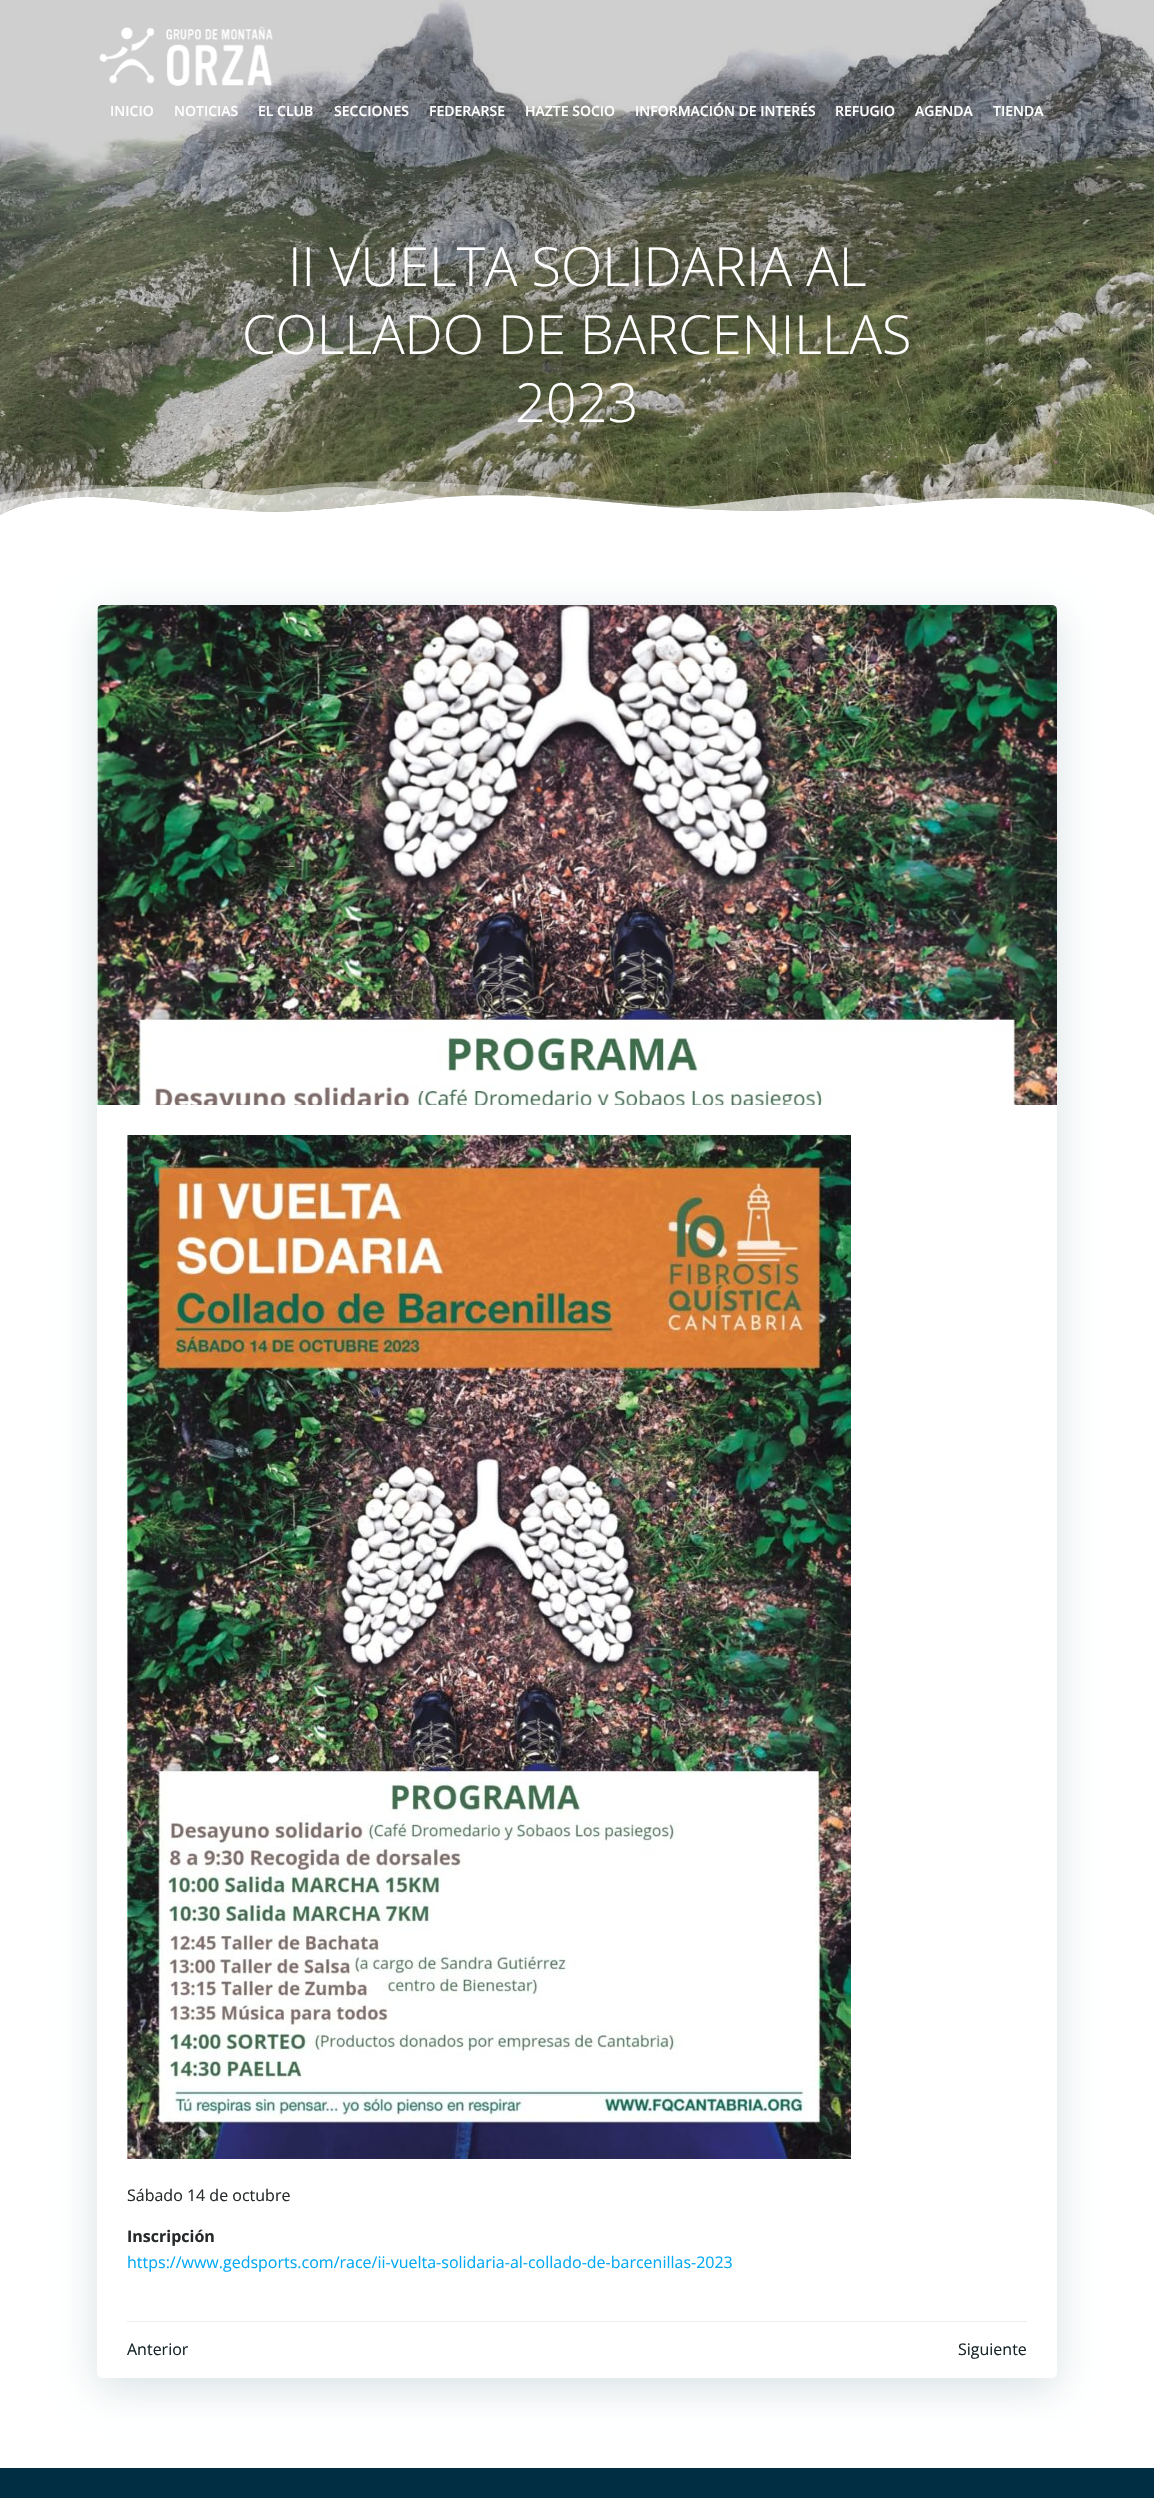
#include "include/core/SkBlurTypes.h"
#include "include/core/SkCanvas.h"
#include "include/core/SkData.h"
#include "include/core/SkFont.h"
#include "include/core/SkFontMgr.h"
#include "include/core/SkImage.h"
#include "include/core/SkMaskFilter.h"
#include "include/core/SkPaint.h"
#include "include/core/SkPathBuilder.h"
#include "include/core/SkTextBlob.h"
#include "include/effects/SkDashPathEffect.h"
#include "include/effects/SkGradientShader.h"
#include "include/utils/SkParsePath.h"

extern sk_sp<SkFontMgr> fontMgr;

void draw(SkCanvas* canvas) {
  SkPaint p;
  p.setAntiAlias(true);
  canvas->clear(SK_ColorWHITE);
  canvas->drawImageRect(SkImages::DeferredFromEncodedData(SkData::MakeFromFileName("images/2.png")), SkRect::MakeLTRB(0, 0, 1154, 515), SkSamplingOptions());
  canvas->drawImageRect(SkImages::DeferredFromEncodedData(SkData::MakeFromFileName("images/1.png")), SkRect::MakeLTRB(99, 26, 273, 86), SkSamplingOptions());
  canvas->drawImageRect(SkImages::DeferredFromEncodedData(SkData::MakeFromFileName("images/3.png")), SkRect::MakeLTRB(0, 481, 1154, 515), SkSamplingOptions());
  p.setColor(SkColorSetARGB(38, 1, 51, 74));
  p.setMaskFilter(SkMaskFilter::MakeBlur(kNormal_SkBlurStyle, 20));
  canvas->drawRoundRect(SkRect::MakeLTRB(97, 615, 1057, 2388), 5, 5, p);
  p.setMaskFilter(nullptr);
  p.setColor(SK_ColorWHITE);
  canvas->drawRoundRect(SkRect::MakeLTRB(97, 605, 1057, 2378), 5, 5, p);
  canvas->drawImageRect(SkImages::DeferredFromEncodedData(SkData::MakeFromFileName("images/4.png")), SkRect::MakeLTRB(97, 605, 1057, 1105), SkSamplingOptions());
  canvas->drawImageRect(SkImages::DeferredFromEncodedData(SkData::MakeFromFileName("images/5.png")), SkRect::MakeLTRB(127, 1135, 851, 2159), SkSamplingOptions());
  p.setColor(SkColorSetRGB(238, 238, 238));
  canvas->drawRect(SkRect::MakeLTRB(127, 2321, 1027, 2322), p);
  p.setColor(SkColorSetRGB(2, 46, 68));
  canvas->drawRect(SkRect::MakeLTRB(0, 2468, 1154, 2498), p);
  SkFont font1(fontMgr->matchFamilyStyle("Open Sans", SkFontStyle(600, SkFontStyle::kNormal_Width, SkFontStyle::kUpright_Slant)), 14);
  font1.setSubpixel(true);
  p.setColor(SK_ColorWHITE);
  canvas->drawString("INICIO", 110, 116, font1, p);
  canvas->drawString("NOTICIAS", 174, 116, font1, p);
  canvas->drawString("EL CLUB", 258, 116, font1, p);
  canvas->drawString("SECCIONES", 334, 116, font1, p);
  canvas->drawString("FEDERARSE", 429, 116, font1, p);
  canvas->drawString("HAZTE SOCIO", 525, 116, font1, p);
  canvas->drawString("INFORMACIÓN DE INTERÉS", 635, 116, font1, p);
  canvas->drawString("REFUGIO", 835, 116, font1, p);
  canvas->drawString("AGENDA", 915, 116, font1, p);
  canvas->drawString("TIENDA", 993, 116, font1, p);
  SkFont font2(fontMgr->matchFamilyStyle("Open Sans", SkFontStyle(300, SkFontStyle::kNormal_Width, SkFontStyle::kUpright_Slant)), 54);
  font2.setSubpixel(true);
  canvas->drawString("II VUELTA SOLIDARIA AL", 288, 286, font2, p);
  canvas->drawString("COLLADO DE BARCENILLAS", 242, 354, font2, p);
  canvas->drawString("2023", 515, 422, font2, p);
  SkFont font3(fontMgr->matchFamilyStyle("Open Sans", SkFontStyle::Normal()), 16);
  font3.setSubpixel(true);
  p.setColor(SkColorSetRGB(37, 41, 42));
  canvas->drawString("Sábado 14 de octubre", 127, 2201, font3, p);
  SkFont font4(fontMgr->matchFamilyStyle("Open Sans", SkFontStyle::Bold()), 16);
  font4.setSubpixel(true);
  canvas->drawString("Inscripción", 127, 2242, font4, p);
  p.setColor(SkColorSetRGB(3, 169, 244));
  canvas->drawString("https://www.gedsports.com/race/ii-vuelta-solidaria-al-collado-de-barcenillas-2023", 127, 2268, font3, p);
  p.setColor(SkColorSetRGB(23, 37, 42));
  canvas->drawString("Anterior", 127, 2355, font3, p);
  canvas->drawString("Siguiente", 958, 2355, font3, p);
}
